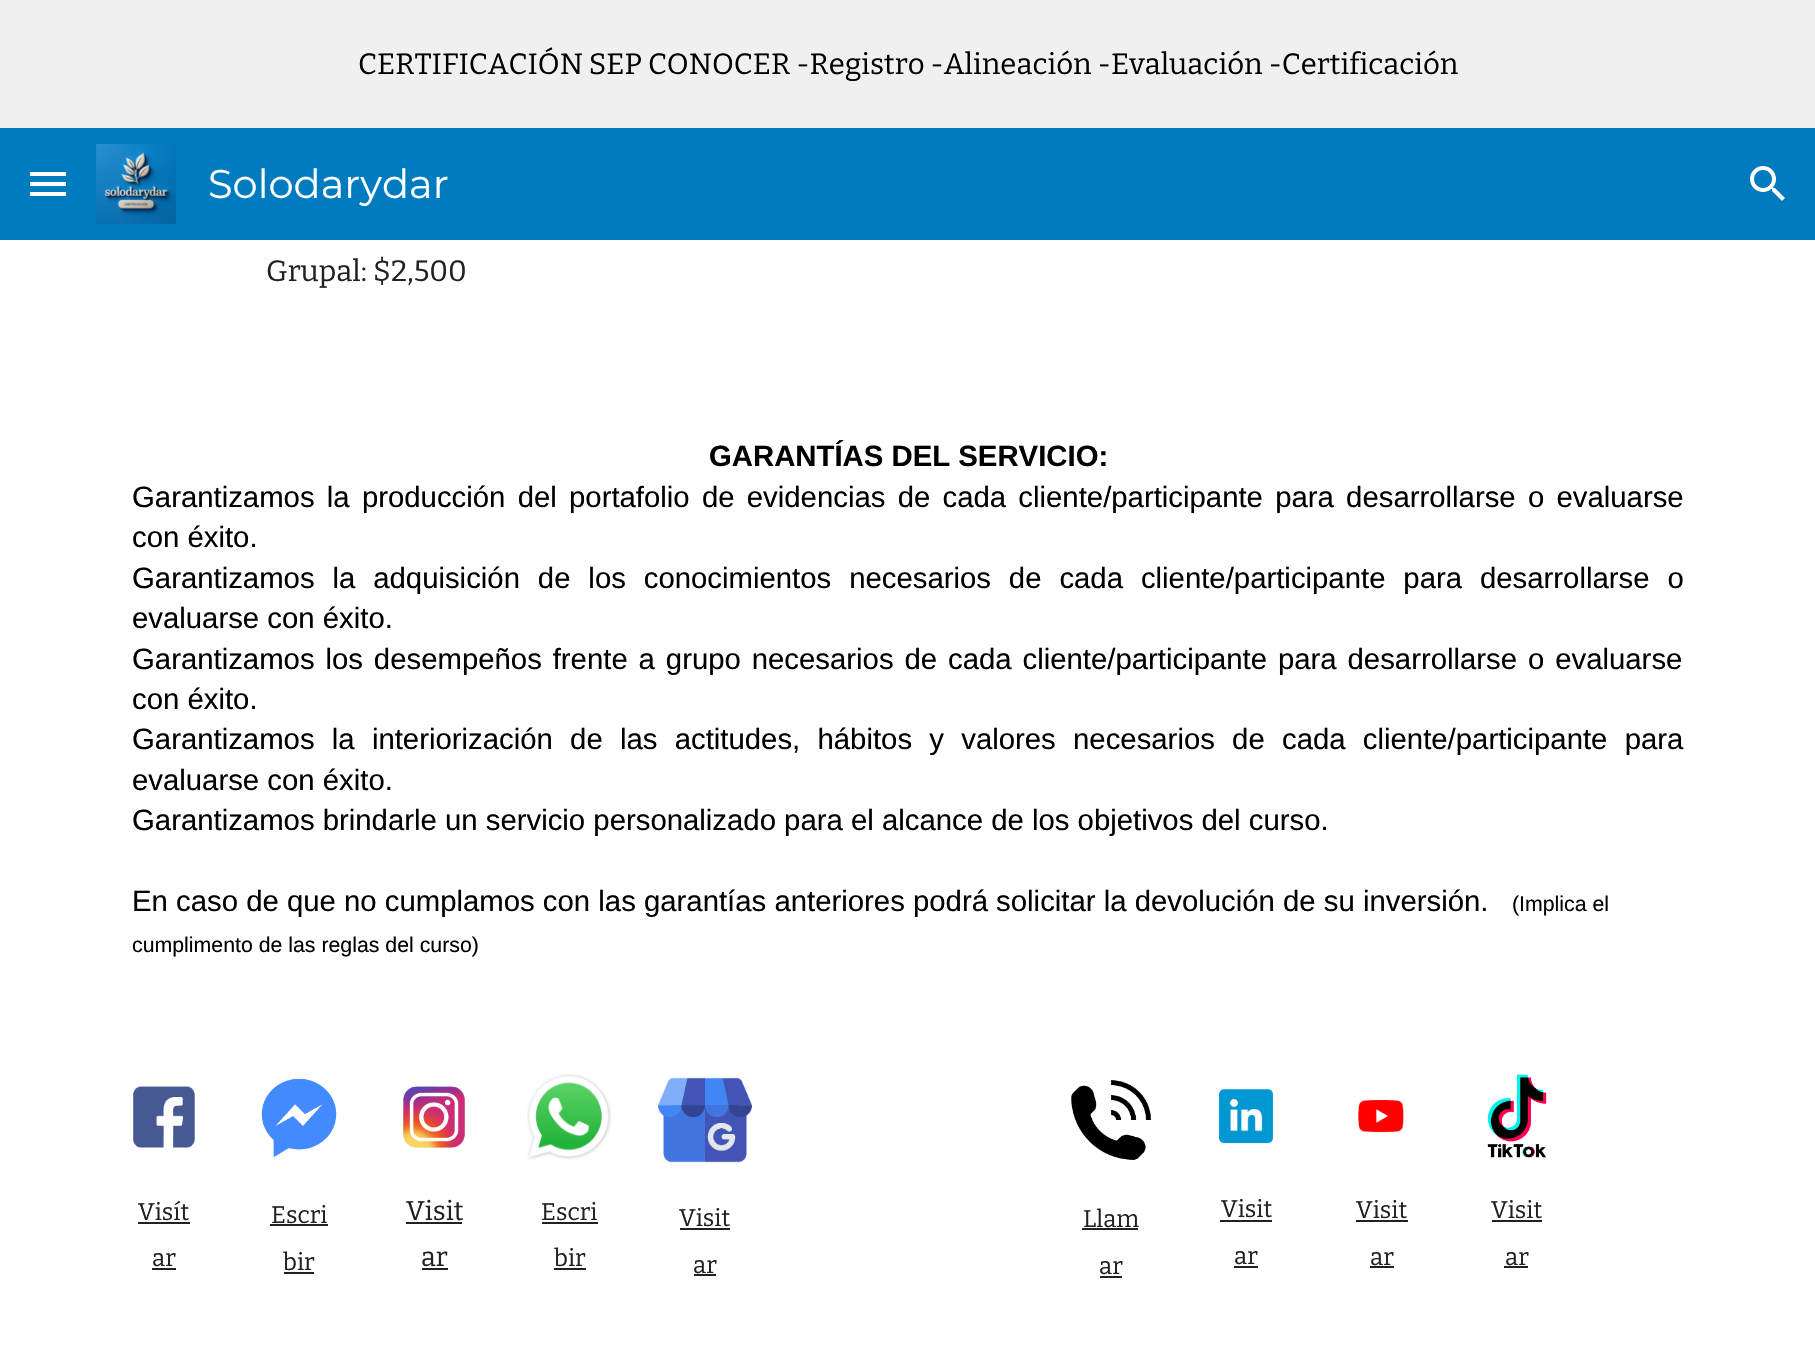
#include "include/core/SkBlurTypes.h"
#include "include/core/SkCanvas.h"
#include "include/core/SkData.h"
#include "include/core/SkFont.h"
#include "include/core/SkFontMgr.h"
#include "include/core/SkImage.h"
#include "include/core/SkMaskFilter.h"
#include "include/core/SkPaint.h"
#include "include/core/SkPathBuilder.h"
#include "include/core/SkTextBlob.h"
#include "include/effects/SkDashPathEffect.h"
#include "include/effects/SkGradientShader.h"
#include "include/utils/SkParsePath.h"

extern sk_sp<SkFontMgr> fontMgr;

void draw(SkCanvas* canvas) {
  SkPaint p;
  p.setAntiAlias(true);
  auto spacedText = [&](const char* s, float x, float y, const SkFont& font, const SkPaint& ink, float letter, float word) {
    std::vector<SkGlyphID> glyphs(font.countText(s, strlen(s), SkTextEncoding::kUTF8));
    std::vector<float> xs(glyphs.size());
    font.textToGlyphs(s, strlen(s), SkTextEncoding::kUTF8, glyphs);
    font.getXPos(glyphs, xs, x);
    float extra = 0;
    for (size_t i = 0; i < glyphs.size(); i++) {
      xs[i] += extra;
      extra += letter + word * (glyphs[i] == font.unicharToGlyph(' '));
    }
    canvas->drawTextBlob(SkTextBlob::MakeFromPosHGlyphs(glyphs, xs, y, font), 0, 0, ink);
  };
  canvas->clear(SK_ColorWHITE);
  p.setColor(SkColorSetRGB(240, 240, 240));
  canvas->drawRect(SkRect::MakeLTRB(0, 0, 1815, 128), p);
  p.setColor(SkColorSetRGB(0, 123, 191));
  canvas->drawRect(SkRect::MakeLTRB(0, 128, 1815, 240), p);
  p.setColor(SK_ColorWHITE);
  canvas->drawRect(SkRect::MakeLTRB(30, 172, 66, 176), p);
  canvas->drawRect(SkRect::MakeLTRB(30, 182, 66, 186), p);
  canvas->drawRect(SkRect::MakeLTRB(30, 192, 66, 196), p);
  canvas->drawImageRect(SkImages::DeferredFromEncodedData(SkData::MakeFromFileName("images/1.png")), SkRect::MakeLTRB(96, 144, 176, 224), SkSamplingOptions());
  canvas->drawImageRect(SkImages::DeferredFromEncodedData(SkData::MakeFromFileName("images/2.png")), SkRect::MakeLTRB(1750, 166, 1785, 201), SkSamplingOptions());
  canvas->drawImageRect(SkImages::DeferredFromEncodedData(SkData::MakeFromFileName("images/3.png")), SkRect::MakeLTRB(133, 1086, 195, 1148), SkSamplingOptions());
  p.setColor(SkColorSetRGB(33, 33, 33));
  canvas->drawRect(SkRect::MakeLTRB(138, 1222, 190, 1224), p);
  canvas->drawRect(SkRect::MakeLTRB(152, 1268, 176, 1270), p);
  canvas->drawImageRect(SkImages::DeferredFromEncodedData(SkData::MakeFromFileName("images/4.png")), SkRect::MakeLTRB(261, 1078, 337, 1158), SkSamplingOptions());
  canvas->drawRect(SkRect::MakeLTRB(270, 1224, 328, 1226), p);
  canvas->drawRect(SkRect::MakeLTRB(284, 1272, 314, 1274), p);
  canvas->drawImageRect(SkImages::DeferredFromEncodedData(SkData::MakeFromFileName("images/5.png")), SkRect::MakeLTRB(403, 1086, 465, 1148), SkSamplingOptions());
  canvas->drawRect(SkRect::MakeLTRB(406, 1222, 462, 1224), p);
  canvas->drawRect(SkRect::MakeLTRB(422, 1268, 448, 1270), p);
  canvas->drawImageRect(SkImages::DeferredFromEncodedData(SkData::MakeFromFileName("images/6.png")), SkRect::MakeLTRB(527, 1074, 612, 1160), SkSamplingOptions());
  canvas->drawRect(SkRect::MakeLTRB(542, 1222, 598, 1224), p);
  canvas->drawRect(SkRect::MakeLTRB(554, 1268, 586, 1270), p);
  canvas->drawImageRect(SkImages::DeferredFromEncodedData(SkData::MakeFromFileName("images/7.png")), SkRect::MakeLTRB(658, 1077, 752, 1163), SkSamplingOptions());
  canvas->drawRect(SkRect::MakeLTRB(680, 1228, 730, 1230), p);
  canvas->drawRect(SkRect::MakeLTRB(694, 1274, 716, 1276), p);
  canvas->drawImageRect(SkImages::DeferredFromEncodedData(SkData::MakeFromFileName("images/8.png")), SkRect::MakeLTRB(1071, 1080, 1152, 1160), SkSamplingOptions());
  canvas->drawRect(SkRect::MakeLTRB(1082, 1228, 1138, 1230), p);
  canvas->drawRect(SkRect::MakeLTRB(1100, 1276, 1122, 1278), p);
  canvas->drawImageRect(SkImages::DeferredFromEncodedData(SkData::MakeFromFileName("images/9.png")), SkRect::MakeLTRB(1219, 1089, 1273, 1144), SkSamplingOptions());
  canvas->drawRect(SkRect::MakeLTRB(1220, 1220, 1272, 1222), p);
  canvas->drawRect(SkRect::MakeLTRB(1234, 1266, 1258, 1268), p);
  canvas->drawImageRect(SkImages::DeferredFromEncodedData(SkData::MakeFromFileName("images/10.png")), SkRect::MakeLTRB(1358, 1100, 1404, 1133), SkSamplingOptions());
  canvas->drawRect(SkRect::MakeLTRB(1356, 1220, 1408, 1222), p);
  canvas->drawRect(SkRect::MakeLTRB(1370, 1266, 1394, 1268), p);
  canvas->drawImageRect(SkImages::DeferredFromEncodedData(SkData::MakeFromFileName("images/11.png")), SkRect::MakeLTRB(1487, 1074, 1547, 1158), SkSamplingOptions());
  canvas->drawRect(SkRect::MakeLTRB(1492, 1220, 1542, 1222), p);
  canvas->drawRect(SkRect::MakeLTRB(1504, 1266, 1528, 1268), p);
  SkFont font1(fontMgr->matchFamilyStyle("Bitter", SkFontStyle::Normal()), 29.33f);
  font1.setSubpixel(true);
  p.setColor(SK_ColorBLACK);
  canvas->drawString("CERTIFICACIÓN SEP CONOCER -Registro -Alineación -Evaluación -Certificación", 358, 74, font1, p);
  SkFont font2(fontMgr->matchFamilyStyle("Montserrat", SkFontStyle::Normal()), 40);
  font2.setSubpixel(true);
  p.setColor(SK_ColorWHITE);
  canvas->drawString("Solodarydar", 208, 198, font2, p);
  p.setColor(SkColorSetRGB(33, 33, 33));
  canvas->drawString("Grupal: $2,500", 266, 281, font1, p);
  SkFont font3(fontMgr->matchFamilyStyle("Liberation Sans", SkFontStyle::Bold()), 29.33f);
  font3.setSubpixel(true);
  p.setColor(SK_ColorBLACK);
  canvas->drawString("GARANTÍAS DEL SERVICIO:", 709, 466, font3, p);
  SkFont font4(fontMgr->matchFamilyStyle("Liberation Sans", SkFontStyle::Normal()), 29.33f);
  font4.setSubpixel(true);
  spacedText("Garantizamos la producción del portafolio de evidencias de cada cliente/participante para desarrollarse o evaluarse", 132, 507, font4, p, 0, 4.1f);
  canvas->drawString("con éxito.", 132, 547, font4, p);
  spacedText("Garantizamos la adquisición de los conocimientos necesarios de cada cliente/participante para desarrollarse o", 132, 588, font4, p, 0, 9.75f);
  canvas->drawString("evaluarse con éxito.", 132, 628, font4, p);
  spacedText("Garantizamos los desempeños frente a grupo necesarios de cada cliente/participante para desarrollarse o evaluarse", 132, 669, font4, p, 0, 2.75f);
  canvas->drawString("con éxito.", 132, 709, font4, p);
  spacedText("Garantizamos la interiorización de las actitudes, hábitos y valores necesarios de cada cliente/participante para", 132, 749, font4, p, 0, 9.1f);
  canvas->drawString("evaluarse con éxito.", 132, 790, font4, p);
  canvas->drawString("Garantizamos brindarle un servicio personalizado para el alcance de los objetivos del curso.", 132, 830, font4, p);
  canvas->drawString("En caso de que no cumplamos con las garantías anteriores podrá solicitar la devolución de su inversión.", 132, 911, font4, p);
  SkFont font5(fontMgr->matchFamilyStyle("Liberation Sans", SkFontStyle::Normal()), 21.3f);
  font5.setSubpixel(true);
  canvas->drawString("(Implica el", 1512, 911, font5, p);
  canvas->drawString("cumplimento de las reglas del curso)", 132, 952, font5, p);
  SkFont font6(fontMgr->matchFamilyStyle("Bitter", SkFontStyle::Normal()), 24);
  font6.setSubpixel(true);
  p.setColor(SkColorSetRGB(33, 33, 33));
  canvas->drawString("Visít", 138, 1220, font6, p);
  canvas->drawString("ar", 152, 1266, font6, p);
  canvas->drawString("Escri", 271, 1223, font6, p);
  canvas->drawString("bir", 283, 1270, font6, p);
  SkFont font7(fontMgr->matchFamilyStyle("Bitter", SkFontStyle::Normal()), 27);
  font7.setSubpixel(true);
  canvas->drawString("Visit", 406, 1220, font7, p);
  canvas->drawString("ar", 421, 1266, font7, p);
  canvas->drawString("Escri", 541, 1220, font6, p);
  canvas->drawString("bir", 554, 1266, font6, p);
  canvas->drawString("Visit", 679, 1226, font6, p);
  canvas->drawString("ar", 693, 1273, font6, p);
  canvas->drawString("Llam", 1083, 1227, font6, p);
  canvas->drawString("ar", 1099, 1274, font6, p);
  canvas->drawString("Visit", 1221, 1217, font6, p);
  canvas->drawString("ar", 1234, 1264, font6, p);
  canvas->drawString("Visit", 1356, 1218, font6, p);
  canvas->drawString("ar", 1370, 1265, font6, p);
  canvas->drawString("Visit", 1491, 1218, font6, p);
  canvas->drawString("ar", 1505, 1265, font6, p);
}
